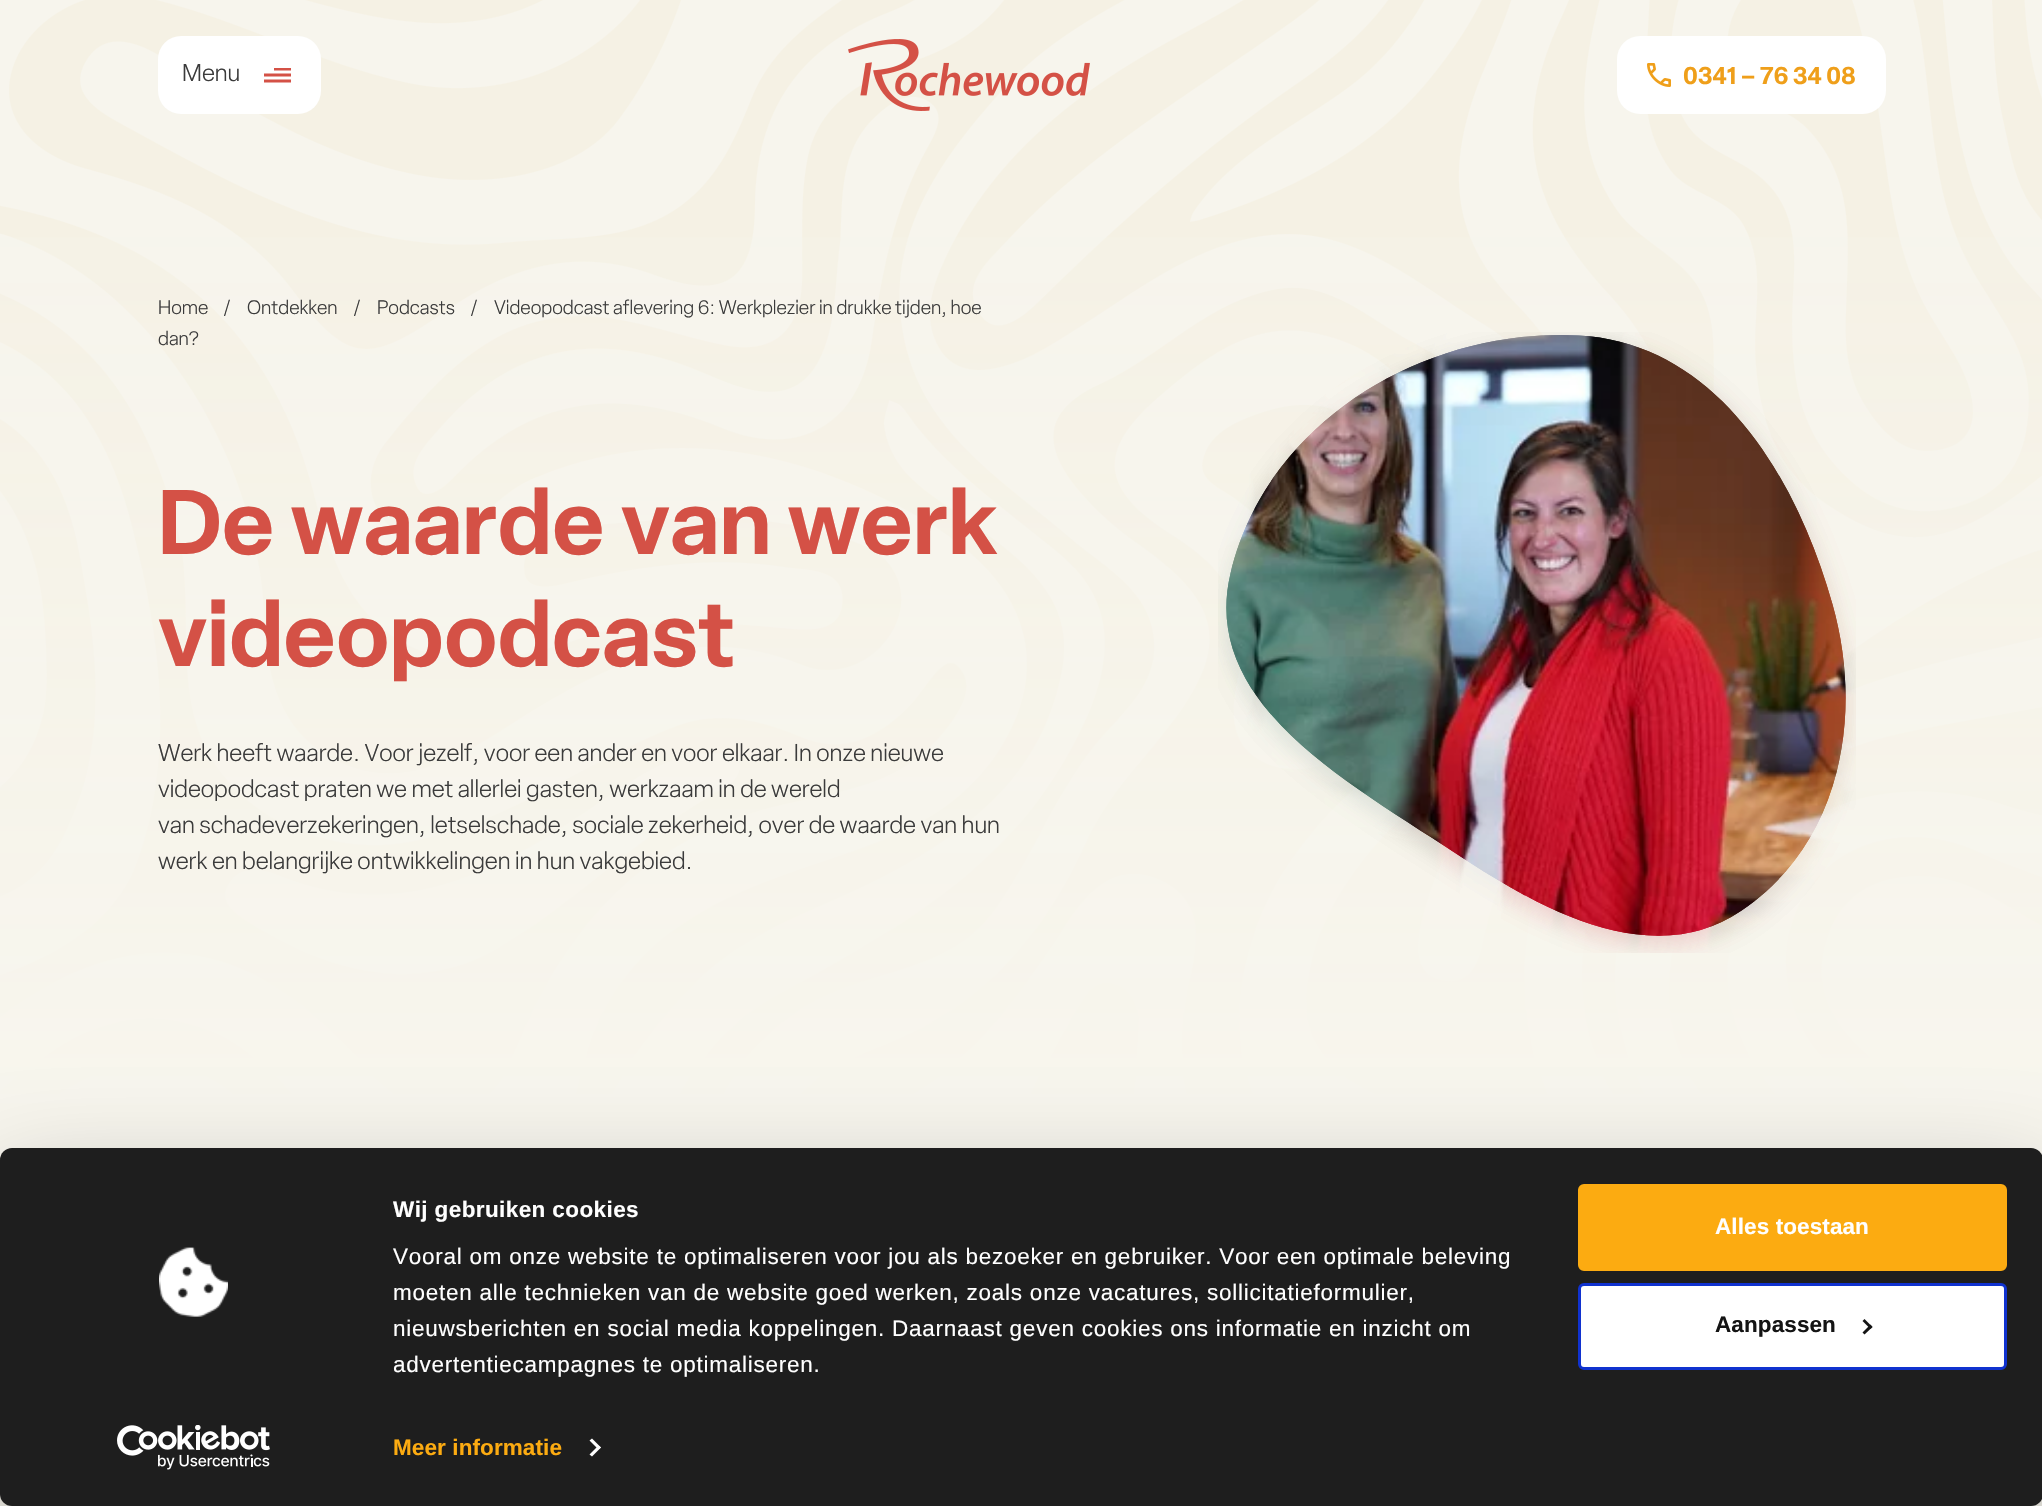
#include "include/core/SkBlurTypes.h"
#include "include/core/SkCanvas.h"
#include "include/core/SkData.h"
#include "include/core/SkFont.h"
#include "include/core/SkFontMgr.h"
#include "include/core/SkImage.h"
#include "include/core/SkMaskFilter.h"
#include "include/core/SkPaint.h"
#include "include/core/SkPathBuilder.h"
#include "include/core/SkTextBlob.h"
#include "include/effects/SkDashPathEffect.h"
#include "include/effects/SkGradientShader.h"
#include "include/utils/SkParsePath.h"

extern sk_sp<SkFontMgr> fontMgr;

void draw(SkCanvas* canvas) {
  SkPaint p;
  p.setAntiAlias(true);
  auto spacedText = [&](const char* s, float x, float y, const SkFont& font, const SkPaint& ink, float letter, float word) {
    std::vector<SkGlyphID> glyphs(font.countText(s, strlen(s), SkTextEncoding::kUTF8));
    std::vector<float> xs(glyphs.size());
    font.textToGlyphs(s, strlen(s), SkTextEncoding::kUTF8, glyphs);
    font.getXPos(glyphs, xs, x);
    float extra = 0;
    for (size_t i = 0; i < glyphs.size(); i++) {
      xs[i] += extra;
      extra += letter + word * (glyphs[i] == font.unicharToGlyph(' '));
    }
    canvas->drawTextBlob(SkTextBlob::MakeFromPosHGlyphs(glyphs, xs, y, font), 0, 0, ink);
  };
  canvas->clear(SkColorSetRGB(247, 245, 237));
  canvas->drawImageRect(SkImages::DeferredFromEncodedData(SkData::MakeFromFileName("images/3.png")), SkRect::MakeLTRB(0, 0, 2042, 1129), SkSamplingOptions());
  p.setColor(SK_ColorWHITE);
  canvas->drawRoundRect(SkRect::MakeLTRB(158, 36, 321, 114), 23, 23, p);
  p.setStyle(SkPaint::kStroke_Style);
  p.setStrokeWidth(3);
  p.setColor(SkColorSetRGB(212, 81, 70));
  canvas->drawPath(SkPathBuilder().moveTo(264, 81).lineTo(291, 81).moveTo(264, 75).lineTo(291, 75).detach(), p);
  canvas->save();
  canvas->clipRect(SkRect::MakeLTRB(264, 68, 291, 83));
  canvas->drawPath(SkPathBuilder().moveTo(274, 69).lineTo(291, 69).detach(), p);
  canvas->restore();
  canvas->drawImageRect(SkImages::DeferredFromEncodedData(SkData::MakeFromFileName("images/1.png")), SkRect::MakeLTRB(848, 39, 1090, 111), SkSamplingOptions());
  p.setStyle(SkPaint::kFill_Style);
  p.setColor(SK_ColorWHITE);
  canvas->drawRoundRect(SkRect::MakeLTRB(1617, 36, 1886, 114), 23, 23, p);
  canvas->drawImageRect(SkImages::DeferredFromEncodedData(SkData::MakeFromFileName("images/2.png")), SkRect::MakeLTRB(1647, 63, 1671, 87), SkSamplingOptions());
  {
    const SkColor colors[] = {SkColorSetARGB(0, 247, 245, 237), SkColorSetRGB(247, 245, 237)};
    const float stops[] = {0, 1};
    const SkPoint ends[] = {{1022, 0}, {1022, 1136}};
    p.setShader(SkGradientShader::MakeLinear(ends, colors, stops, 2, SkTileMode::kClamp));
    p.setAlpha(255);
  }
  canvas->drawRect(SkRect::MakeLTRB(0, 237, 2042, 1129), p);
  canvas->drawImageRect(SkImages::DeferredFromEncodedData(SkData::MakeFromFileName("images/4.png")), SkRect::MakeLTRB(1218, 332, 1856, 953), SkSamplingOptions());
  canvas->drawImageRect(SkImages::DeferredFromEncodedData(SkData::MakeFromFileName("images/5.png")), SkRect::MakeLTRB(1218, 332, 1856, 953), SkSamplingOptions());
  p.setShader(nullptr);
  p.setColor(SkColorSetARGB(77, 0, 0, 0));
  p.setMaskFilter(SkMaskFilter::MakeBlur(kNormal_SkBlurStyle, 52.5f));
  canvas->drawRoundRect(SkRect::MakeLTRB(0, 1193, 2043, 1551), 12, 12, p);
  p.setMaskFilter(nullptr);
  p.setColor(SkColorSetRGB(30, 30, 30));
  canvas->drawRoundRect(SkRect::MakeLTRB(0, 1148, 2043, 1506), 12, 12, p);
  canvas->drawImageRect(SkImages::DeferredFromEncodedData(SkData::MakeFromFileName("images/6.png")), SkRect::MakeLTRB(159, 1247, 228, 1317), SkSamplingOptions());
  canvas->drawImageRect(SkImages::DeferredFromEncodedData(SkData::MakeFromFileName("images/7.png")), SkRect::MakeLTRB(117, 1425, 270, 1470), SkSamplingOptions());
  p.setColor(SK_ColorWHITE);
  canvas->drawPath(SkPathBuilder().moveTo(592, 1438.5f).lineTo(601, 1447.5f).lineTo(598.5f, 1449.5f).lineTo(589.5f, 1440.5f).close().detach(), p);
  canvas->drawPath(SkPathBuilder().moveTo(598.5f, 1445.5f).lineTo(601, 1447.5f).lineTo(592, 1456.5f).lineTo(589.5f, 1454.5f).close().detach(), p);
  p.setColor(SkColorSetRGB(252, 171, 17));
  canvas->drawRoundRect(SkRect::MakeLTRB(1579.5f, 1185.5f, 2005.5f, 1269.5f), 4.5f, 4.5f, p);
  p.setStyle(SkPaint::kStroke_Style);
  canvas->drawRoundRect(SkRect::MakeLTRB(1579.5f, 1185.5f, 2005.5f, 1269.5f), 4.5f, 4.5f, p);
  p.setStyle(SkPaint::kFill_Style);
  p.setColor(SK_ColorWHITE);
  canvas->drawRoundRect(SkRect::MakeLTRB(1579.5f, 1284.5f, 2005.5f, 1368.5f), 4.5f, 4.5f, p);
  p.setStyle(SkPaint::kStroke_Style);
  p.setColor(SkColorSetRGB(16, 50, 207));
  canvas->drawRoundRect(SkRect::MakeLTRB(1579.5f, 1284.5f, 2005.5f, 1368.5f), 4.5f, 4.5f, p);
  p.setStyle(SkPaint::kFill_Style);
  p.setColor(SkColorSetRGB(20, 20, 20));
  canvas->drawPath(SkPathBuilder().moveTo(1864.5f, 1319).lineTo(1872.5f, 1327).lineTo(1870.5f, 1329).lineTo(1862.5f, 1321).close().detach(), p);
  canvas->drawPath(SkPathBuilder().moveTo(1870.5f, 1324.5f).lineTo(1872.5f, 1327).lineTo(1864.5f, 1334.5f).lineTo(1862.5f, 1332.5f).close().detach(), p);
  SkFont font1(fontMgr->matchFamilyStyle("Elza", SkFontStyle(300, SkFontStyle::kNormal_Width, SkFontStyle::kUpright_Slant)), 24);
  font1.setSubpixel(true);
  p.setColor(SkColorSetRGB(59, 59, 59));
  canvas->drawString("Menu", 182, 81, font1, p);
  SkFont font2(fontMgr->matchFamilyStyle("Elza", SkFontStyle(600, SkFontStyle::kNormal_Width, SkFontStyle::kUpright_Slant)), 24);
  font2.setSubpixel(true);
  p.setColor(SkColorSetRGB(239, 159, 26));
  canvas->drawString("0341 – 76 34 08", 1683, 84, font2, p);
  SkFont font3(fontMgr->matchFamilyStyle("Elza", SkFontStyle(300, SkFontStyle::kNormal_Width, SkFontStyle::kUpright_Slant)), 19.2f);
  font3.setSubpixel(true);
  p.setColor(SkColorSetRGB(59, 59, 59));
  canvas->drawString("Home", 158, 314, font3, p);
  canvas->drawString("/", 223, 314, font3, p);
  canvas->drawString("Ontdekken", 247, 314, font3, p);
  canvas->drawString("/", 353, 314, font3, p);
  canvas->drawString("Podcasts", 377, 314, font3, p);
  canvas->drawString("/", 470, 314, font3, p);
  canvas->drawString("Videopodcast aflevering 6: Werkplezier in drukke tijden, hoe", 494, 314, font3, p);
  canvas->drawString("dan?", 158, 345, font3, p);
  SkFont font4(fontMgr->matchFamilyStyle("Elza", SkFontStyle(600, SkFontStyle::kNormal_Width, SkFontStyle::kUpright_Slant)), 90);
  font4.setSubpixel(true);
  p.setColor(SkColorSetRGB(212, 81, 70));
  canvas->drawString("De waarde van werk", 158, 554, font4, p);
  canvas->drawString("videopodcast", 158, 666, font4, p);
  p.setColor(SkColorSetRGB(59, 59, 59));
  canvas->drawString("Werk heeft waarde. Voor jezelf, voor een ander en voor elkaar. In onze nieuwe", 158, 761, font1, p);
  canvas->drawString("videopodcast praten we met allerlei gasten, werkzaam in de wereld", 158, 797, font1, p);
  canvas->drawString("van schadeverzekeringen, letselschade, sociale zekerheid, over de waarde van hun", 158, 833, font1, p);
  canvas->drawString("werk en belangrijke ontwikkelingen in hun vakgebied.", 158, 869, font1, p);
  SkFont font5(fontMgr->matchFamilyStyle("Liberation Sans", SkFontStyle::Bold()), 22.5f);
  font5.setSubpixel(true);
  p.setColor(SK_ColorWHITE);
  spacedText("Wij gebruiken cookies", 393, 1217, font5, p, 0.4f, 0);
  SkFont font6(fontMgr->matchFamilyStyle("Liberation Sans", SkFontStyle::Normal()), 22.5f);
  font6.setSubpixel(true);
  spacedText("Vooral om onze website te optimaliseren voor jou als bezoeker en gebruiker. Voor een optimale beleving", 393, 1264, font6, p, 0.75f, 0);
  spacedText("moeten alle technieken van de website goed werken, zoals onze vacatures, sollicitatieformulier,", 393, 1300, font6, p, 0.75f, 0);
  spacedText("nieuwsberichten en social media koppelingen. Daarnaast geven cookies ons informatie en inzicht om", 393, 1336, font6, p, 0.75f, 0);
  spacedText("advertentiecampagnes te optimaliseren.", 393, 1372, font6, p, 0.75f, 0);
  p.setColor(SkColorSetRGB(252, 171, 17));
  spacedText("Meer informatie", 393, 1455, font5, p, 0.1f, 0);
  p.setColor(SK_ColorWHITE);
  spacedText("Alles toestaan", 1715, 1234, font5, p, 0.1f, 0);
  p.setColor(SkColorSetRGB(20, 20, 20));
  spacedText("Aanpassen", 1715, 1332, font5, p, 0.1f, 0);
}
